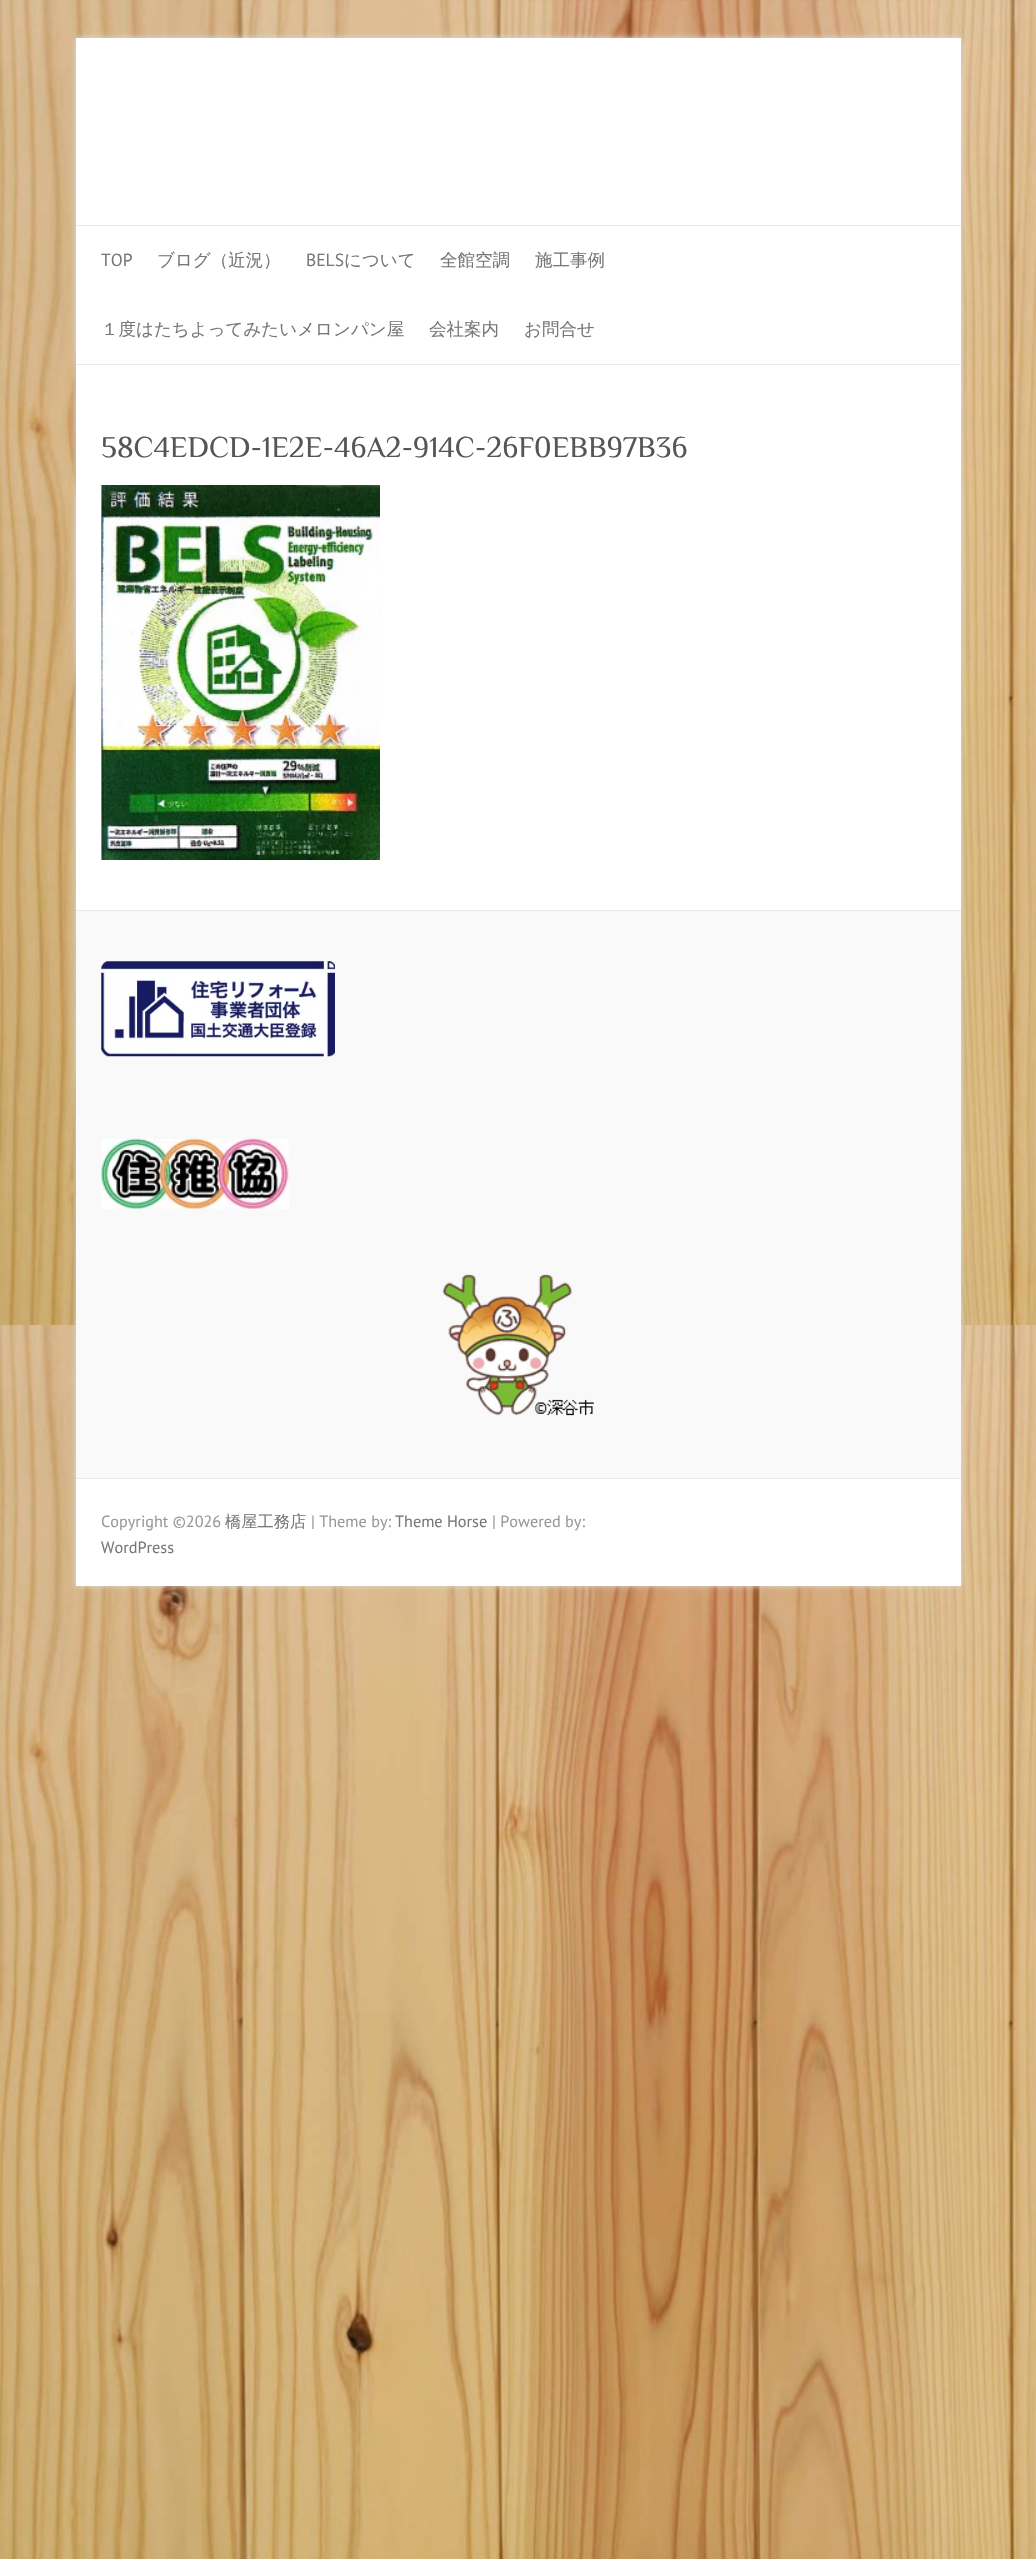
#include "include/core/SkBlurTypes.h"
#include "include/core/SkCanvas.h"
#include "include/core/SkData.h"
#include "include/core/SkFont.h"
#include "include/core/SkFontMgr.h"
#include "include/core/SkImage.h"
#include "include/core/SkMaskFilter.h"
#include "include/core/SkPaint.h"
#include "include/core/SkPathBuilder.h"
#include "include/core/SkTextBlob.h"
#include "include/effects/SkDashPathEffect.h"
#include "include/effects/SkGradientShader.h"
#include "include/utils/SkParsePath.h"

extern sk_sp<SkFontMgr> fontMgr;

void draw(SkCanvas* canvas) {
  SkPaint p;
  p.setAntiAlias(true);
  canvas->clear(SK_ColorWHITE);
  canvas->drawImageRect(SkImages::DeferredFromEncodedData(SkData::MakeFromFileName("images/1.png")), SkRect::MakeLTRB(0, 0, 1036, 2559), SkSamplingOptions());
  p.setColor(SkColorSetRGB(221, 221, 221));
  p.setMaskFilter(SkMaskFilter::MakeBlur(kNormal_SkBlurStyle, 3));
  canvas->drawRect(SkRect::MakeLTRB(76, 38, 961, 1586), p);
  p.setMaskFilter(nullptr);
  p.setColor(SK_ColorWHITE);
  canvas->drawRect(SkRect::MakeLTRB(76, 38, 961, 1586), p);
  p.setColor(SkColorSetRGB(234, 234, 234));
  canvas->drawRect(SkRect::MakeLTRB(76, 225, 961, 226), p);
  canvas->drawRect(SkRect::MakeLTRB(76, 364, 961, 365), p);
  canvas->drawImageRect(SkImages::DeferredFromEncodedData(SkData::MakeFromFileName("images/2.png")), SkRect::MakeLTRB(101, 485, 380, 860), SkSamplingOptions());
  p.setColor(SkColorSetRGB(249, 249, 249));
  canvas->drawRect(SkRect::MakeLTRB(76, 911, 961, 1478), p);
  p.setColor(SkColorSetRGB(234, 234, 234));
  canvas->drawRect(SkRect::MakeLTRB(76, 910, 961, 911), p);
  canvas->drawImageRect(SkImages::DeferredFromEncodedData(SkData::MakeFromFileName("images/3.png")), SkRect::MakeLTRB(101, 961, 335, 1057), SkSamplingOptions());
  canvas->drawImageRect(SkImages::DeferredFromEncodedData(SkData::MakeFromFileName("images/4.png")), SkRect::MakeLTRB(101, 1138, 289, 1209), SkSamplingOptions());
  canvas->drawImageRect(SkImages::DeferredFromEncodedData(SkData::MakeFromFileName("images/5.png")), SkRect::MakeLTRB(442, 1274, 594, 1416), SkSamplingOptions());
  canvas->drawRect(SkRect::MakeLTRB(76, 1478, 961, 1479), p);
  SkFont font1(fontMgr->matchFamilyStyle("PT Sans", SkFontStyle::Normal()), 17.5f);
  font1.setSubpixel(true);
  p.setColor(SkColorSetRGB(119, 119, 119));
  canvas->drawString("TOP", 101, 266, font1, p);
  SkFont font2(fontMgr->matchFamilyStyle("WenQuanYi Zen Hei", SkFontStyle(500, SkFontStyle::kNormal_Width, SkFontStyle::kUpright_Slant)), 17.5f);
  font2.setSubpixel(true);
  canvas->drawString("ブログ（近況）", 157, 266, font2, p);
  canvas->drawString("BELS", 306, 266, font1, p);
  canvas->drawString("について", 344, 266, font2, p);
  canvas->drawString("全館空調", 440, 266, font2, p);
  canvas->drawString("施工事例", 535, 266, font2, p);
  canvas->drawString("１度はたちよってみたいメロンパン屋", 101, 335, font2, p);
  canvas->drawString("会社案内", 429, 335, font2, p);
  canvas->drawString("お問合せ", 524, 335, font2, p);
  SkFont font3(fontMgr->matchFamilyStyle("Philosopher", SkFontStyle::Normal()), 30);
  font3.setSubpixel(true);
  p.setColor(SkColorSetRGB(85, 85, 85));
  canvas->drawString("58C4EDCD-1E2E-46A2-914C-26F0EBB97B36", 101, 457, font3, p);
  SkFont font4(fontMgr->matchFamilyStyle("PT Sans", SkFontStyle::Normal()), 16.25f);
  font4.setSubpixel(true);
  p.setColor(SkColorSetRGB(153, 153, 153));
  canvas->drawString("Copyright ©2026", 101, 1527, font4, p);
  SkFont font5(fontMgr->matchFamilyStyle("WenQuanYi Zen Hei", SkFontStyle(500, SkFontStyle::kNormal_Width, SkFontStyle::kUpright_Slant)), 16.25f);
  font5.setSubpixel(true);
  p.setColor(SkColorSetRGB(119, 119, 119));
  canvas->drawString("橋屋工務店", 225, 1527, font5, p);
  p.setColor(SkColorSetRGB(153, 153, 153));
  canvas->drawString("| Theme by:", 311, 1527, font4, p);
  p.setColor(SkColorSetRGB(119, 119, 119));
  canvas->drawString("Theme Horse", 395, 1527, font4, p);
  p.setColor(SkColorSetRGB(153, 153, 153));
  canvas->drawString("| Powered by:", 492, 1527, font4, p);
  p.setColor(SkColorSetRGB(119, 119, 119));
  canvas->drawString("WordPress", 101, 1553, font4, p);
}
